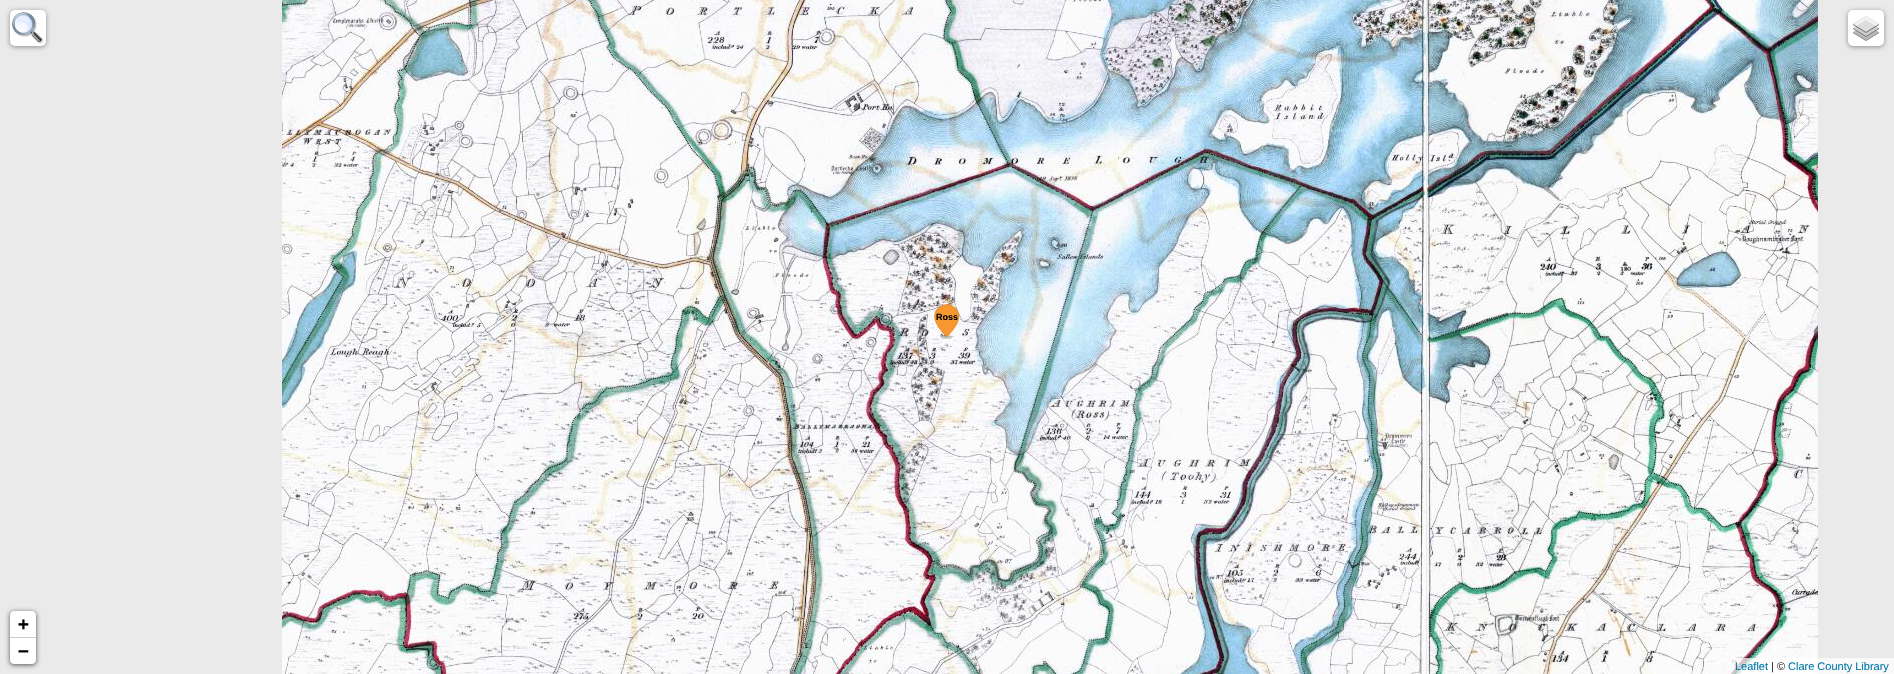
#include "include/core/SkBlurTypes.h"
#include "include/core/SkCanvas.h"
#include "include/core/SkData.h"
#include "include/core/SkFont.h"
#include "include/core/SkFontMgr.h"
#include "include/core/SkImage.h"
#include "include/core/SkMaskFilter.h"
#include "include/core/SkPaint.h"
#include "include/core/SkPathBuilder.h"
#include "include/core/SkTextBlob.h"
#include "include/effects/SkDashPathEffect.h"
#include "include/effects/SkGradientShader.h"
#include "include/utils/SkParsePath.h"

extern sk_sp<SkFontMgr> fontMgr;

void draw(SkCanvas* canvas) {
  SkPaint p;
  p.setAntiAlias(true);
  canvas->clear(SkColorSetRGB(234, 234, 234));
  canvas->drawImageRect(SkImages::DeferredFromEncodedData(SkData::MakeFromFileName("images/1.png")), SkRect::MakeLTRB(282, 0, 538, 82), SkSamplingOptions());
  canvas->drawImageRect(SkImages::DeferredFromEncodedData(SkData::MakeFromFileName("images/2.png")), SkRect::MakeLTRB(538, 0, 794, 82), SkSamplingOptions());
  canvas->drawImageRect(SkImages::DeferredFromEncodedData(SkData::MakeFromFileName("images/3.png")), SkRect::MakeLTRB(794, 0, 1050, 82), SkSamplingOptions());
  canvas->drawImageRect(SkImages::DeferredFromEncodedData(SkData::MakeFromFileName("images/4.png")), SkRect::MakeLTRB(1050, 0, 1306, 82), SkSamplingOptions());
  canvas->drawImageRect(SkImages::DeferredFromEncodedData(SkData::MakeFromFileName("images/5.png")), SkRect::MakeLTRB(1306, 0, 1562, 82), SkSamplingOptions());
  canvas->drawImageRect(SkImages::DeferredFromEncodedData(SkData::MakeFromFileName("images/6.png")), SkRect::MakeLTRB(1562, 0, 1818, 82), SkSamplingOptions());
  canvas->drawImageRect(SkImages::DeferredFromEncodedData(SkData::MakeFromFileName("images/7.png")), SkRect::MakeLTRB(282, 82, 538, 338), SkSamplingOptions());
  canvas->drawImageRect(SkImages::DeferredFromEncodedData(SkData::MakeFromFileName("images/8.png")), SkRect::MakeLTRB(538, 82, 794, 338), SkSamplingOptions());
  canvas->drawImageRect(SkImages::DeferredFromEncodedData(SkData::MakeFromFileName("images/9.png")), SkRect::MakeLTRB(794, 82, 1050, 338), SkSamplingOptions());
  canvas->drawImageRect(SkImages::DeferredFromEncodedData(SkData::MakeFromFileName("images/10.png")), SkRect::MakeLTRB(1050, 82, 1306, 338), SkSamplingOptions());
  canvas->drawImageRect(SkImages::DeferredFromEncodedData(SkData::MakeFromFileName("images/11.png")), SkRect::MakeLTRB(1306, 82, 1562, 338), SkSamplingOptions());
  canvas->drawImageRect(SkImages::DeferredFromEncodedData(SkData::MakeFromFileName("images/12.png")), SkRect::MakeLTRB(1562, 82, 1818, 338), SkSamplingOptions());
  canvas->drawImageRect(SkImages::DeferredFromEncodedData(SkData::MakeFromFileName("images/13.png")), SkRect::MakeLTRB(282, 338, 538, 594), SkSamplingOptions());
  canvas->drawImageRect(SkImages::DeferredFromEncodedData(SkData::MakeFromFileName("images/14.png")), SkRect::MakeLTRB(538, 338, 794, 594), SkSamplingOptions());
  canvas->drawImageRect(SkImages::DeferredFromEncodedData(SkData::MakeFromFileName("images/15.png")), SkRect::MakeLTRB(794, 338, 1050, 594), SkSamplingOptions());
  canvas->drawImageRect(SkImages::DeferredFromEncodedData(SkData::MakeFromFileName("images/16.png")), SkRect::MakeLTRB(1050, 338, 1306, 594), SkSamplingOptions());
  canvas->drawImageRect(SkImages::DeferredFromEncodedData(SkData::MakeFromFileName("images/17.png")), SkRect::MakeLTRB(1306, 338, 1562, 594), SkSamplingOptions());
  canvas->drawImageRect(SkImages::DeferredFromEncodedData(SkData::MakeFromFileName("images/18.png")), SkRect::MakeLTRB(1562, 338, 1818, 594), SkSamplingOptions());
  canvas->drawImageRect(SkImages::DeferredFromEncodedData(SkData::MakeFromFileName("images/19.png")), SkRect::MakeLTRB(282, 594, 538, 674), SkSamplingOptions());
  canvas->drawImageRect(SkImages::DeferredFromEncodedData(SkData::MakeFromFileName("images/20.png")), SkRect::MakeLTRB(538, 594, 794, 674), SkSamplingOptions());
  canvas->drawImageRect(SkImages::DeferredFromEncodedData(SkData::MakeFromFileName("images/21.png")), SkRect::MakeLTRB(794, 594, 1050, 674), SkSamplingOptions());
  canvas->drawImageRect(SkImages::DeferredFromEncodedData(SkData::MakeFromFileName("images/22.png")), SkRect::MakeLTRB(1050, 594, 1306, 674), SkSamplingOptions());
  canvas->drawImageRect(SkImages::DeferredFromEncodedData(SkData::MakeFromFileName("images/23.png")), SkRect::MakeLTRB(1306, 594, 1562, 674), SkSamplingOptions());
  canvas->drawImageRect(SkImages::DeferredFromEncodedData(SkData::MakeFromFileName("images/24.png")), SkRect::MakeLTRB(1562, 594, 1818, 674), SkSamplingOptions());
  canvas->drawImageRect(SkImages::DeferredFromEncodedData(SkData::MakeFromFileName("images/25.png")), SkRect::MakeLTRB(934, 304, 960, 339), SkSamplingOptions());
  p.setColor(SkColorSetARGB(102, 0, 0, 0));
  p.setMaskFilter(SkMaskFilter::MakeBlur(kNormal_SkBlurStyle, 2.5f));
  canvas->drawRoundRect(SkRect::MakeLTRB(10, 11, 46, 47), 5, 5, p);
  p.setMaskFilter(nullptr);
  p.setColor(SK_ColorWHITE);
  canvas->drawRoundRect(SkRect::MakeLTRB(10, 10, 46, 46), 5, 5, p);
  canvas->drawImageRect(SkImages::DeferredFromEncodedData(SkData::MakeFromFileName("images/26.png")), SkRect::MakeLTRB(12, 12, 44, 44), SkSamplingOptions());
  p.setColor(SkColorSetARGB(102, 0, 0, 0));
  p.setMaskFilter(SkMaskFilter::MakeBlur(kNormal_SkBlurStyle, 2.5f));
  canvas->drawRoundRect(SkRect::MakeLTRB(1848, 11, 1884, 47), 5, 5, p);
  p.setMaskFilter(nullptr);
  p.setColor(SK_ColorWHITE);
  canvas->drawRoundRect(SkRect::MakeLTRB(1848, 10, 1884, 46), 5, 5, p);
  canvas->drawImageRect(SkImages::DeferredFromEncodedData(SkData::MakeFromFileName("images/27.png")), SkRect::MakeLTRB(1853, 16, 1879, 41), SkSamplingOptions());
  p.setColor(SkColorSetARGB(166, 0, 0, 0));
  p.setMaskFilter(SkMaskFilter::MakeBlur(kNormal_SkBlurStyle, 2.5f));
  canvas->drawRoundRect(SkRect::MakeLTRB(10, 612, 36, 665), 4, 4, p);
  p.setMaskFilter(nullptr);
  p.setColor(SK_ColorWHITE);
  canvas->drawPath(SkPathBuilder().moveTo(14, 611).lineTo(32, 611).cubicTo(34, 611, 36, 613, 36, 615).lineTo(36, 638).lineTo(10, 638).lineTo(10, 615).cubicTo(10, 613, 12, 611, 14, 611).close().detach(), p);
  p.setColor(SkColorSetRGB(204, 204, 204));
  canvas->drawRect(SkRect::MakeLTRB(10, 637, 36, 638), p);
  p.setColor(SK_ColorWHITE);
  canvas->drawPath(SkPathBuilder().moveTo(10, 638).lineTo(36, 638).lineTo(36, 660).cubicTo(36, 662, 34, 664, 32, 664).lineTo(14, 664).cubicTo(12, 664, 10, 662, 10, 660).close().detach(), p);
  p.setColor(SkColorSetARGB(179, 255, 255, 255));
  canvas->drawRect(SkRect::MakeLTRB(1730, 658, 1894, 674), p);
  SkFont font1(fontMgr->matchFamilyStyle("Liberation Sans", SkFontStyle::Bold()), 9);
  font1.setSubpixel(true);
  p.setColor(SK_ColorBLACK);
  canvas->drawString("Ross", 936, 320, font1, p);
  SkFont font2(fontMgr->matchFamilyStyle("DejaVu Sans Mono", SkFontStyle::Bold()), 18);
  font2.setSubpixel(true);
  canvas->drawString("+", 18, 630, font2, p);
  canvas->drawString("−", 18, 657, font2, p);
  SkFont font3(fontMgr->matchFamilyStyle("Liberation Sans", SkFontStyle::Normal()), 11);
  font3.setSubpixel(true);
  p.setColor(SkColorSetRGB(0, 120, 168));
  canvas->drawString("Leaflet", 1735, 670, font3, p);
  p.setColor(SkColorSetRGB(51, 51, 51));
  canvas->drawString("| ©", 1771, 670, font3, p);
  p.setColor(SkColorSetRGB(0, 120, 168));
  canvas->drawString("Clare County Library", 1788, 670, font3, p);
}
